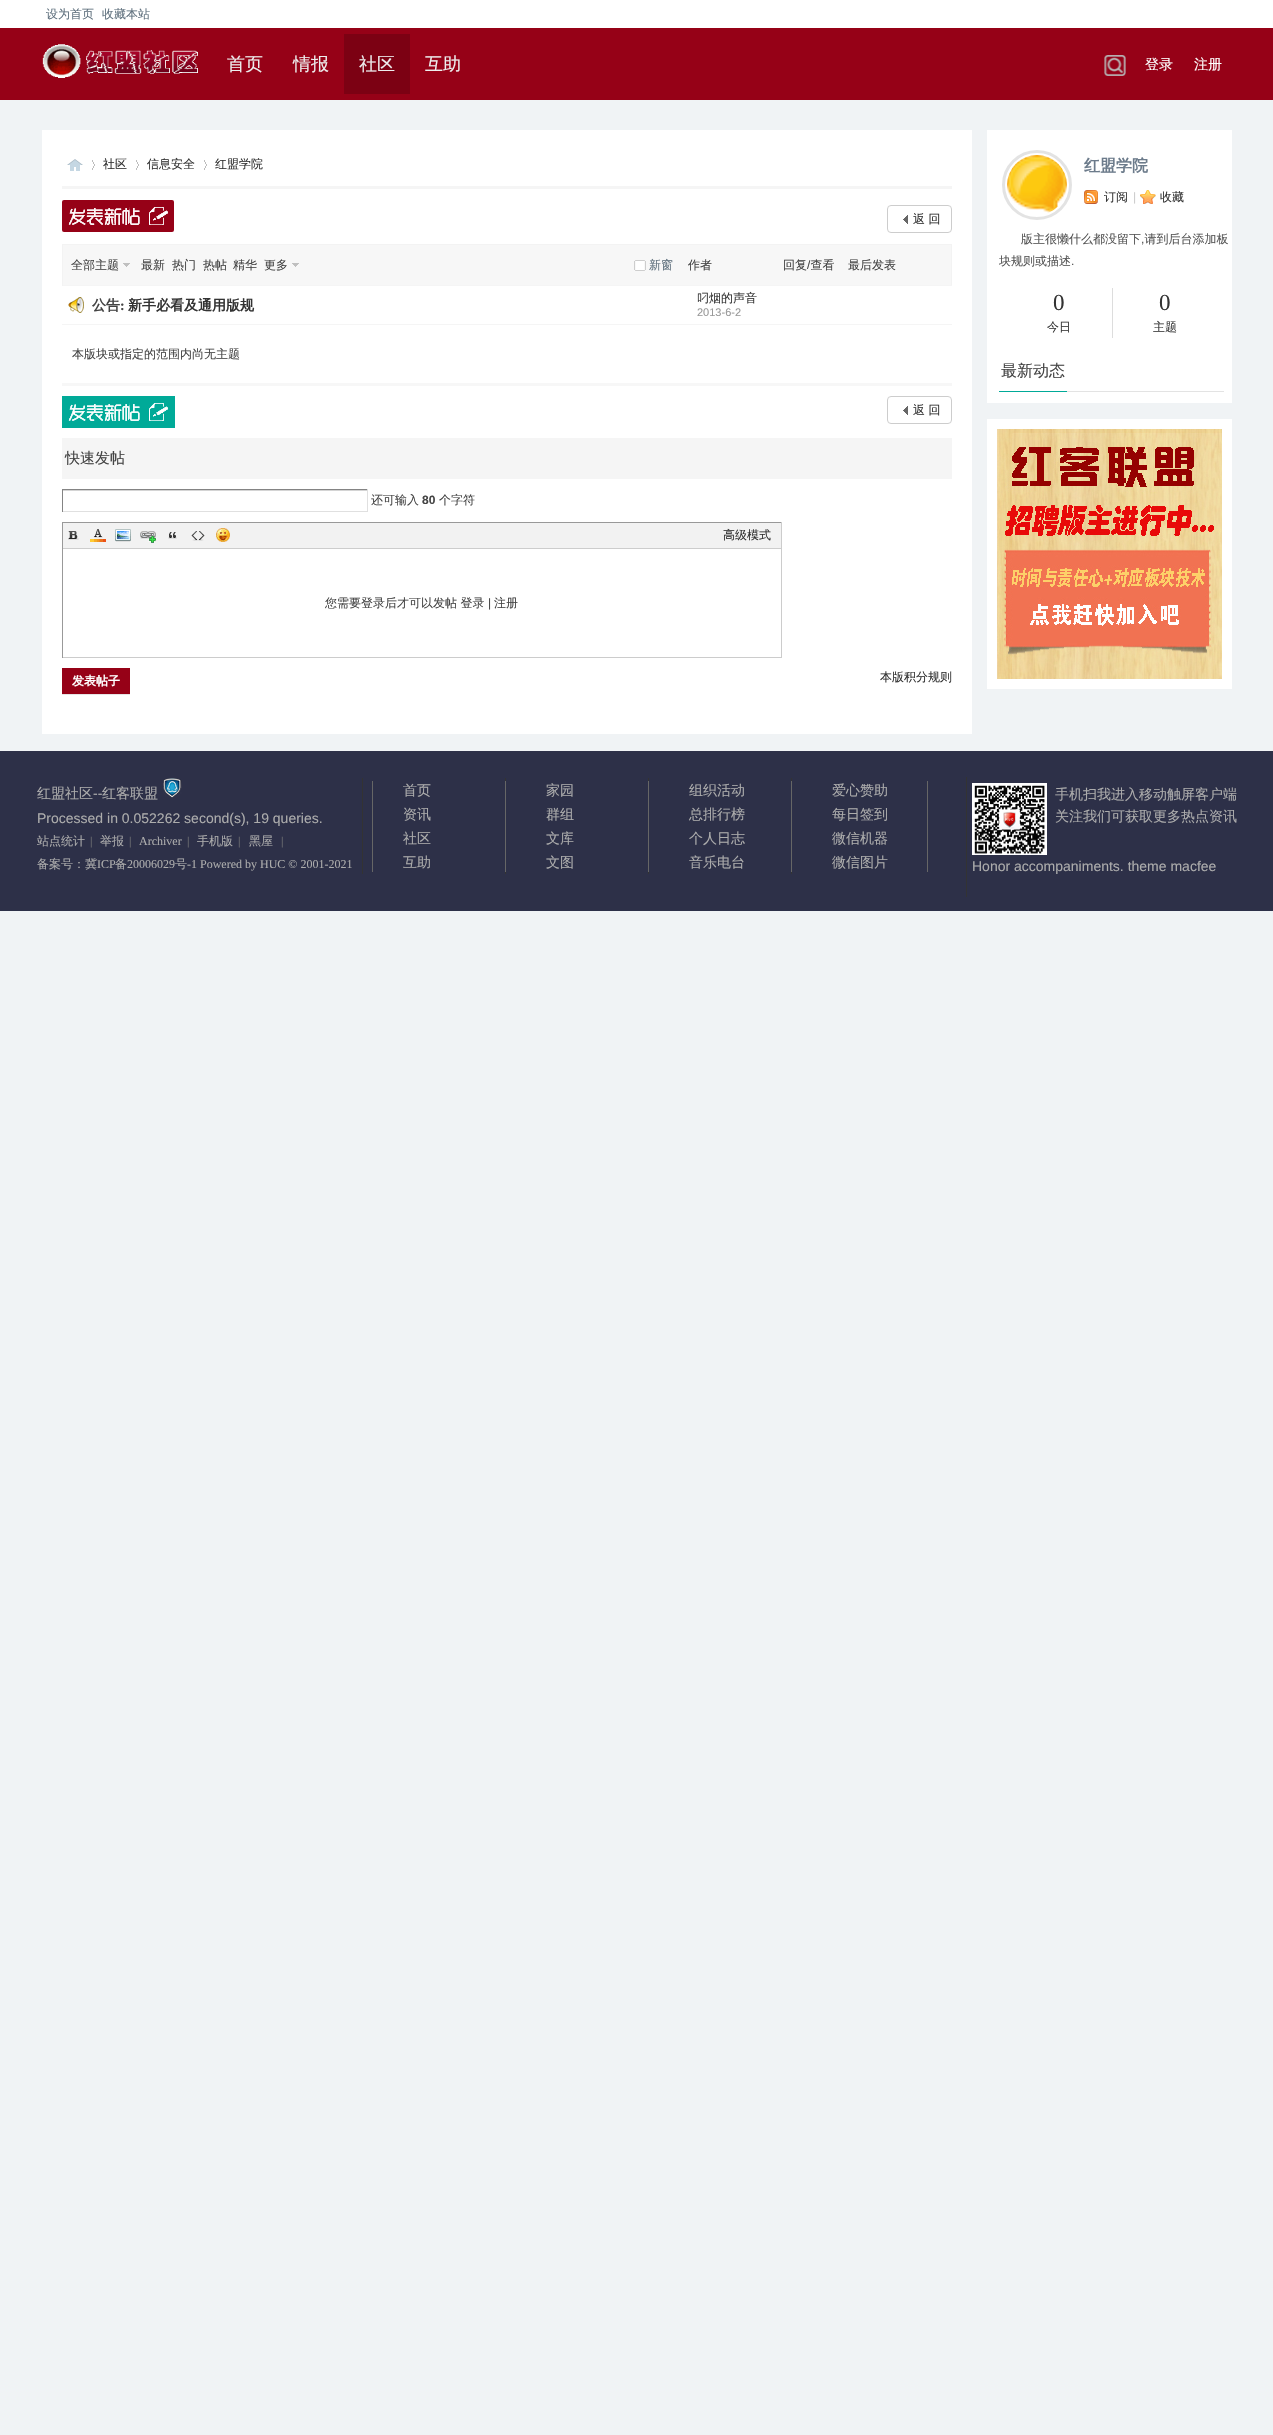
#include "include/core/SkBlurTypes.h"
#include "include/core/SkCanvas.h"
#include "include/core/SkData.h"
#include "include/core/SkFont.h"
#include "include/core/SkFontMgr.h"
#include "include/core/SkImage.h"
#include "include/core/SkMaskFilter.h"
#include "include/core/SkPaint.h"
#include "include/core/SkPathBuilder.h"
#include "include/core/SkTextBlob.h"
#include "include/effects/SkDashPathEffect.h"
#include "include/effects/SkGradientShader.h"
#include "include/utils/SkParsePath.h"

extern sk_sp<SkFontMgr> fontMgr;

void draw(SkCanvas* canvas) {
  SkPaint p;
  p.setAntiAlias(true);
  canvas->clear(SkColorSetRGB(240, 243, 245));
  p.setColor(SK_ColorWHITE);
  canvas->drawRect(SkRect::MakeLTRB(0, 0, 1273, 28), p);
  p.setColor(SkColorSetRGB(150, 1, 23));
  canvas->drawRect(SkRect::MakeLTRB(0, 28, 1273, 100), p);
  canvas->drawImageRect(SkImages::DeferredFromEncodedData(SkData::MakeFromFileName("images/1.png")), SkRect::MakeLTRB(42, 44, 198, 78), SkSamplingOptions());
  p.setColor(SkColorSetRGB(124, 1, 19));
  canvas->drawRect(SkRect::MakeLTRB(344, 34, 410, 94), p);
  canvas->drawImageRect(SkImages::DeferredFromEncodedData(SkData::MakeFromFileName("images/2.png")), SkRect::MakeLTRB(1104, 55, 1126, 76), SkSamplingOptions());
  p.setColor(SK_ColorWHITE);
  canvas->drawRect(SkRect::MakeLTRB(42, 130, 972, 734), p);
  p.setColor(SkColorSetRGB(245, 245, 245));
  canvas->drawRect(SkRect::MakeLTRB(62, 186, 952, 189), p);
  canvas->drawImageRect(SkImages::DeferredFromEncodedData(SkData::MakeFromFileName("images/3.png")), SkRect::MakeLTRB(67, 159, 83, 171), SkSamplingOptions());
  canvas->drawImageRect(SkImages::DeferredFromEncodedData(SkData::MakeFromFileName("images/4.png")), SkRect::MakeLTRB(92, 160, 95, 170), SkSamplingOptions());
  canvas->drawImageRect(SkImages::DeferredFromEncodedData(SkData::MakeFromFileName("images/5.png")), SkRect::MakeLTRB(115, 163, 122, 167), SkSamplingOptions());
  canvas->drawImageRect(SkImages::DeferredFromEncodedData(SkData::MakeFromFileName("images/4.png")), SkRect::MakeLTRB(136, 160, 139, 170), SkSamplingOptions());
  canvas->drawImageRect(SkImages::DeferredFromEncodedData(SkData::MakeFromFileName("images/4.png")), SkRect::MakeLTRB(204, 160, 207, 170), SkSamplingOptions());
  p.setColor(SkColorSetRGB(150, 1, 23));
  canvas->drawRoundRect(SkRect::MakeLTRB(62, 200, 174, 232), 2, 2, p);
  canvas->drawImageRect(SkImages::DeferredFromEncodedData(SkData::MakeFromFileName("images/6.png")), SkRect::MakeLTRB(68, 207, 169, 225), SkSamplingOptions());
  canvas->drawImageRect(SkImages::DeferredFromEncodedData(SkData::MakeFromFileName("images/7.png")), SkRect::MakeLTRB(903, 215, 908, 224), SkSamplingOptions());
  p.setStyle(SkPaint::kStroke_Style);
  p.setStrokeWidth(1);
  p.setColor(SkColorSetRGB(205, 205, 205));
  canvas->drawRoundRect(SkRect::MakeLTRB(887.5f, 205.5f, 951.5f, 232.5f), 3.5f, 3.5f, p);
  p.setStyle(SkPaint::kFill_Style);
  p.setColor(SkColorSetRGB(247, 247, 247));
  canvas->drawRect(SkRect::MakeLTRB(63, 245, 951, 285), p);
  p.setColor(SkColorSetRGB(243, 243, 243));
  canvas->drawRect(SkRect::MakeLTRB(62, 244, 952, 245), p);
  canvas->drawRect(SkRect::MakeLTRB(951, 244, 952, 286), p);
  p.setColor(SkColorSetRGB(245, 245, 245));
  canvas->drawRect(SkRect::MakeLTRB(62, 285, 952, 286), p);
  p.setColor(SkColorSetRGB(243, 243, 243));
  canvas->drawRect(SkRect::MakeLTRB(62, 244, 63, 286), p);
  canvas->drawImageRect(SkImages::DeferredFromEncodedData(SkData::MakeFromFileName("images/8.png")), SkRect::MakeLTRB(123, 263, 130, 267), SkSamplingOptions());
  canvas->drawImageRect(SkImages::DeferredFromEncodedData(SkData::MakeFromFileName("images/8.png")), SkRect::MakeLTRB(292, 263, 299, 267), SkSamplingOptions());
  canvas->drawImageRect(SkImages::DeferredFromEncodedData(SkData::MakeFromFileName("images/9.png")), SkRect::MakeLTRB(634, 260, 646, 271), SkSamplingOptions());
  p.setColor(SkColorSetRGB(247, 247, 247));
  canvas->drawRect(SkRect::MakeLTRB(62, 383, 952, 386), p);
  p.setColor(SkColorSetRGB(245, 245, 245));
  canvas->drawRect(SkRect::MakeLTRB(62, 324, 952, 325), p);
  canvas->drawImageRect(SkImages::DeferredFromEncodedData(SkData::MakeFromFileName("images/10.png")), SkRect::MakeLTRB(68, 297, 84, 313), SkSamplingOptions());
  p.setColor(SkColorSetRGB(0, 170, 152));
  canvas->drawRect(SkRect::MakeLTRB(62, 396, 175, 428), p);
  canvas->drawImageRect(SkImages::DeferredFromEncodedData(SkData::MakeFromFileName("images/11.png")), SkRect::MakeLTRB(68, 403, 169, 421), SkSamplingOptions());
  canvas->drawImageRect(SkImages::DeferredFromEncodedData(SkData::MakeFromFileName("images/7.png")), SkRect::MakeLTRB(903, 406, 908, 415), SkSamplingOptions());
  p.setStyle(SkPaint::kStroke_Style);
  p.setColor(SkColorSetRGB(205, 205, 205));
  canvas->drawRoundRect(SkRect::MakeLTRB(887.5f, 396.5f, 951.5f, 423.5f), 3.5f, 3.5f, p);
  p.setStyle(SkPaint::kFill_Style);
  p.setColor(SkColorSetRGB(245, 245, 245));
  canvas->drawRect(SkRect::MakeLTRB(62, 438, 952, 479), p);
  p.setColor(SkColorSetRGB(212, 212, 212));
  canvas->drawRect(SkRect::MakeLTRB(62, 490, 368, 491), p);
  p.setColor(SkColorSetRGB(132, 132, 132));
  canvas->drawRect(SkRect::MakeLTRB(62, 489, 368, 490), p);
  p.setColor(SkColorSetRGB(224, 224, 224));
  canvas->drawRect(SkRect::MakeLTRB(367, 489, 368, 512), p);
  canvas->drawRect(SkRect::MakeLTRB(62, 511, 368, 512), p);
  p.setColor(SkColorSetRGB(132, 132, 132));
  canvas->drawRect(SkRect::MakeLTRB(62, 489, 63, 512), p);
  p.setColor(SkColorSetRGB(153, 153, 153));
  canvas->drawRect(SkRect::MakeLTRB(62, 522, 782, 523), p);
  p.setColor(SkColorSetRGB(204, 204, 204));
  canvas->drawRect(SkRect::MakeLTRB(781, 522, 782, 658), p);
  canvas->drawRect(SkRect::MakeLTRB(62, 657, 782, 658), p);
  p.setColor(SkColorSetRGB(153, 153, 153));
  canvas->drawRect(SkRect::MakeLTRB(62, 522, 63, 658), p);
  p.setColor(SkColorSetRGB(242, 242, 242));
  canvas->drawRect(SkRect::MakeLTRB(63, 523, 781, 548), p);
  p.setColor(SkColorSetRGB(205, 205, 205));
  canvas->drawRect(SkRect::MakeLTRB(63, 548, 781, 549), p);
  canvas->drawImageRect(SkImages::DeferredFromEncodedData(SkData::MakeFromFileName("images/12.png")), SkRect::MakeLTRB(68, 531, 79, 540), SkSamplingOptions());
  canvas->drawImageRect(SkImages::DeferredFromEncodedData(SkData::MakeFromFileName("images/13.png")), SkRect::MakeLTRB(90, 529, 106, 542), SkSamplingOptions());
  canvas->drawImageRect(SkImages::DeferredFromEncodedData(SkData::MakeFromFileName("images/14.png")), SkRect::MakeLTRB(115, 529, 131, 542), SkSamplingOptions());
  canvas->drawImageRect(SkImages::DeferredFromEncodedData(SkData::MakeFromFileName("images/15.png")), SkRect::MakeLTRB(140, 531, 157, 543), SkSamplingOptions());
  canvas->drawImageRect(SkImages::DeferredFromEncodedData(SkData::MakeFromFileName("images/16.png")), SkRect::MakeLTRB(168, 532, 177, 539), SkSamplingOptions());
  canvas->drawImageRect(SkImages::DeferredFromEncodedData(SkData::MakeFromFileName("images/17.png")), SkRect::MakeLTRB(191, 531, 205, 541), SkSamplingOptions());
  canvas->drawImageRect(SkImages::DeferredFromEncodedData(SkData::MakeFromFileName("images/18.png")), SkRect::MakeLTRB(215, 528, 230, 542), SkSamplingOptions());
  p.setColor(SkColorSetRGB(229, 229, 229));
  canvas->drawRect(SkRect::MakeLTRB(62, 694, 130, 695), p);
  p.setColor(SkColorSetRGB(150, 1, 23));
  canvas->drawRect(SkRect::MakeLTRB(62, 668, 130, 694), p);
  p.setColor(SK_ColorWHITE);
  canvas->drawRect(SkRect::MakeLTRB(987, 130, 1232, 403), p);
  p.setStyle(SkPaint::kStroke_Style);
  p.setStrokeWidth(3);
  p.setColor(SkColorSetRGB(227, 227, 227));
  canvas->drawCircle(1037, 185, 33.5f, p);
  canvas->drawImageRect(SkImages::DeferredFromEncodedData(SkData::MakeFromFileName("images/19.png")), SkRect::MakeLTRB(1007, 155, 1067, 213), SkSamplingOptions());
  canvas->drawImageRect(SkImages::DeferredFromEncodedData(SkData::MakeFromFileName("images/20.png")), SkRect::MakeLTRB(1084, 190, 1098, 204), SkSamplingOptions());
  canvas->drawImageRect(SkImages::DeferredFromEncodedData(SkData::MakeFromFileName("images/21.png")), SkRect::MakeLTRB(1140, 190, 1156, 204), SkSamplingOptions());
  p.setStyle(SkPaint::kFill_Style);
  p.setColor(SkColorSetRGB(221, 221, 221));
  canvas->drawRect(SkRect::MakeLTRB(1112, 288, 1113, 338), p);
  p.setColor(SkColorSetRGB(227, 227, 227));
  canvas->drawRect(SkRect::MakeLTRB(1067, 391, 1224, 392), p);
  p.setColor(SkColorSetRGB(0, 170, 152));
  canvas->drawRect(SkRect::MakeLTRB(999, 391, 1067, 392), p);
  p.setColor(SK_ColorWHITE);
  canvas->drawRect(SkRect::MakeLTRB(987, 419, 1232, 689), p);
  canvas->drawImageRect(SkImages::DeferredFromEncodedData(SkData::MakeFromFileName("images/22.png")), SkRect::MakeLTRB(997, 429, 1222, 679), SkSamplingOptions());
  p.setColor(SkColorSetRGB(45, 48, 72));
  canvas->drawRect(SkRect::MakeLTRB(0, 751, 1273, 911), p);
  canvas->drawImageRect(SkImages::DeferredFromEncodedData(SkData::MakeFromFileName("images/23.png")), SkRect::MakeLTRB(163, 778, 182, 798), SkSamplingOptions());
  p.setColor(SkColorSetRGB(102, 102, 102));
  canvas->drawRect(SkRect::MakeLTRB(372, 781, 373, 872), p);
  p.setColor(SkColorSetRGB(51, 51, 51));
  canvas->drawRect(SkRect::MakeLTRB(362, 778, 363, 874), p);
  canvas->drawRect(SkRect::MakeLTRB(505, 778, 506, 874), p);
  p.setColor(SkColorSetRGB(102, 102, 102));
  canvas->drawRect(SkRect::MakeLTRB(505, 781, 506, 872), p);
  p.setColor(SkColorSetRGB(51, 51, 51));
  canvas->drawRect(SkRect::MakeLTRB(648, 778, 649, 874), p);
  p.setColor(SkColorSetRGB(102, 102, 102));
  canvas->drawRect(SkRect::MakeLTRB(648, 781, 649, 872), p);
  p.setColor(SkColorSetRGB(51, 51, 51));
  canvas->drawRect(SkRect::MakeLTRB(791, 778, 792, 874), p);
  p.setColor(SkColorSetRGB(102, 102, 102));
  canvas->drawRect(SkRect::MakeLTRB(791, 781, 792, 872), p);
  canvas->drawRect(SkRect::MakeLTRB(927, 781, 928, 872), p);
  p.setColor(SkColorSetRGB(51, 51, 51));
  canvas->drawRect(SkRect::MakeLTRB(966, 777, 967, 897), p);
  canvas->drawImageRect(SkImages::DeferredFromEncodedData(SkData::MakeFromFileName("images/24.png")), SkRect::MakeLTRB(972, 783, 1047, 855), SkSamplingOptions());
  SkFont font1(fontMgr->matchFamilyStyle("WenQuanYi Zen Hei", SkFontStyle(500, SkFontStyle::kNormal_Width, SkFontStyle::kUpright_Slant)), 12);
  font1.setSubpixel(true);
  p.setColor(SkColorSetRGB(96, 113, 126));
  canvas->drawString("设为首页", 46, 18, font1, p);
  canvas->drawString("收藏本站", 102, 18, font1, p);
  SkFont font2(fontMgr->matchFamilyStyle("WenQuanYi Zen Hei", SkFontStyle(500, SkFontStyle::kNormal_Width, SkFontStyle::kUpright_Slant)), 18);
  font2.setSubpixel(true);
  p.setColor(SkColorSetRGB(238, 238, 238));
  canvas->drawString("首页", 227, 70, font2, p);
  canvas->drawString("情报", 293, 70, font2, p);
  canvas->drawString("社区", 359, 70, font2, p);
  canvas->drawString("互助", 425, 70, font2, p);
  SkFont font3(fontMgr->matchFamilyStyle("WenQuanYi Zen Hei", SkFontStyle(500, SkFontStyle::kNormal_Width, SkFontStyle::kUpright_Slant)), 14);
  font3.setSubpixel(true);
  p.setColor(SK_ColorWHITE);
  canvas->drawString("登录", 1145, 69, font3, p);
  canvas->drawString("注册", 1194, 69, font3, p);
  p.setColor(SkColorSetRGB(51, 51, 51));
  canvas->drawString("社区", 103, 168, font1, p);
  canvas->drawString("信息安全", 147, 168, font1, p);
  canvas->drawString("红盟学院", 215, 168, font1, p);
  canvas->drawString("返 回", 913, 223, font1, p);
  p.setColor(SkColorSetRGB(68, 68, 68));
  canvas->drawString("全部主题", 71, 269, font1, p);
  canvas->drawString("最新", 141, 269, font1, p);
  canvas->drawString("热门", 172, 269, font1, p);
  canvas->drawString("热帖", 203, 269, font1, p);
  canvas->drawString("精华", 233, 269, font1, p);
  canvas->drawString("更多", 264, 269, font1, p);
  p.setColor(SkColorSetRGB(96, 113, 126));
  canvas->drawString("新窗", 649, 269, font1, p);
  p.setColor(SkColorSetRGB(68, 68, 68));
  canvas->drawString("作者", 688, 269, font1, p);
  canvas->drawString("回复 查看", 783, 269, font1, p);
  SkFont font4(fontMgr->matchFamilyStyle("Liberation Sans", SkFontStyle::Normal()), 12);
  font4.setSubpixel(true);
  canvas->drawString("/", 807, 269, font4, p);
  canvas->drawString("最后发表", 848, 269, font1, p);
  p.setColor(SkColorSetRGB(51, 51, 51));
  canvas->drawString("叼烟的声音", 697, 302, font1, p);
  SkFont font5(fontMgr->matchFamilyStyle("Liberation Sans", SkFontStyle::Normal()), 11);
  font5.setSubpixel(true);
  p.setColor(SkColorSetRGB(153, 153, 153));
  canvas->drawString("2013-6-2", 697, 316, font5, p);
  SkFont font6(fontMgr->matchFamilyStyle("WenQuanYi Zen Hei", SkFontStyle::Bold()), 14);
  font6.setSubpixel(true);
  p.setColor(SkColorSetRGB(68, 68, 68));
  canvas->drawString("公告", 92, 310, font6, p);
  SkFont font7(fontMgr->matchFamilyStyle("Liberation Serif", SkFontStyle::Bold()), 14);
  font7.setSubpixel(true);
  canvas->drawString(":", 120, 310, font7, p);
  p.setColor(SkColorSetRGB(51, 51, 51));
  canvas->drawString("新手必看及通用版规", 128, 310, font6, p);
  p.setColor(SkColorSetRGB(68, 68, 68));
  canvas->drawString("本版块或指定的范围内尚无主题", 72, 358, font1, p);
  p.setColor(SkColorSetRGB(51, 51, 51));
  canvas->drawString("返 回", 913, 414, font1, p);
  SkFont font8(fontMgr->matchFamilyStyle("WenQuanYi Zen Hei", SkFontStyle(500, SkFontStyle::kNormal_Width, SkFontStyle::kUpright_Slant)), 15);
  font8.setSubpixel(true);
  p.setColor(SkColorSetRGB(68, 68, 68));
  canvas->drawString("快速发帖", 65, 463, font8, p);
  canvas->drawString("还可输入", 371, 504, font1, p);
  SkFont font9(fontMgr->matchFamilyStyle("Liberation Sans", SkFontStyle::Bold()), 12);
  font9.setSubpixel(true);
  canvas->drawString("80", 422, 504, font9, p);
  canvas->drawString("个字符", 439, 504, font1, p);
  p.setColor(SkColorSetRGB(51, 51, 51));
  canvas->drawString("高级模式", 723, 539, font1, p);
  p.setColor(SkColorSetRGB(68, 68, 68));
  canvas->drawString("您需要登录后才可以发帖 登录", 325, 607, font1, p);
  canvas->drawString("|", 488, 607, font4, p);
  canvas->drawString("注册", 494, 607, font1, p);
  SkFont font10(fontMgr->matchFamilyStyle("WenQuanYi Zen Hei", SkFontStyle::Bold()), 12);
  font10.setSubpixel(true);
  p.setColor(SK_ColorWHITE);
  canvas->drawString("发表帖子", 72, 685, font10, p);
  p.setColor(SkColorSetRGB(51, 51, 51));
  canvas->drawString("本版积分规则", 880, 681, font1, p);
  SkFont font11(fontMgr->matchFamilyStyle("WenQuanYi Zen Hei", SkFontStyle::Bold()), 16);
  font11.setSubpixel(true);
  p.setColor(SkColorSetRGB(108, 123, 139));
  canvas->drawString("红盟学院", 1084, 171, font11, p);
  p.setColor(SkColorSetRGB(51, 51, 51));
  canvas->drawString("订阅", 1104, 201, font1, p);
  p.setColor(SkColorSetRGB(204, 204, 204));
  canvas->drawString("|", 1133, 201, font4, p);
  p.setColor(SkColorSetRGB(51, 51, 51));
  canvas->drawString("收藏", 1160, 201, font1, p);
  p.setColor(SkColorSetRGB(85, 85, 85));
  canvas->drawString("版主很懒什么都没留下 请到后台添加板", 1021, 243, font1, p);
  canvas->drawString(",", 1141, 243, font4, p);
  canvas->drawString("块规则或描述", 999, 265, font1, p);
  canvas->drawString(".", 1071, 265, font4, p);
  SkFont font12(fontMgr->matchFamilyStyle("Liberation Serif", SkFontStyle::Normal()), 23);
  font12.setSubpixel(true);
  p.setColor(SkColorSetRGB(51, 51, 51));
  canvas->drawString("0", 1053, 310, font12, p);
  p.setColor(SkColorSetRGB(58, 58, 58));
  canvas->drawString("今日", 1047, 331, font1, p);
  p.setColor(SkColorSetRGB(51, 51, 51));
  canvas->drawString("0", 1159, 310, font12, p);
  p.setColor(SkColorSetRGB(58, 58, 58));
  canvas->drawString("主题", 1153, 331, font1, p);
  SkFont font13(fontMgr->matchFamilyStyle("WenQuanYi Zen Hei", SkFontStyle(500, SkFontStyle::kNormal_Width, SkFontStyle::kUpright_Slant)), 16);
  font13.setSubpixel(true);
  p.setColor(SkColorSetRGB(68, 68, 68));
  canvas->drawString("最新动态", 1001, 376, font13, p);
  p.setColor(SkColorSetRGB(172, 172, 172));
  canvas->drawString("红盟社区", 37, 798, font3, p);
  SkFont font14(fontMgr->matchFamilyStyle("Liberation Sans", SkFontStyle::Normal()), 14);
  font14.setSubpixel(true);
  canvas->drawString("--", 93, 798, font14, p);
  canvas->drawString("红客联盟", 102, 798, font3, p);
  canvas->drawString("Processed in 0.052262 second(s), 19 queries.", 37, 823, font14, p);
  canvas->drawString("站点统计", 37, 845, font1, p);
  SkFont font15(fontMgr->matchFamilyStyle("Liberation Serif", SkFontStyle::Normal()), 12);
  font15.setSubpixel(true);
  p.setColor(SkColorSetRGB(119, 119, 119));
  canvas->drawString("|", 90, 845, font15, p);
  p.setColor(SkColorSetRGB(172, 172, 172));
  canvas->drawString("举报", 100, 845, font1, p);
  p.setColor(SkColorSetRGB(119, 119, 119));
  canvas->drawString("|", 129, 845, font15, p);
  p.setColor(SkColorSetRGB(172, 172, 172));
  canvas->drawString("Archiver", 139, 845, font15, p);
  p.setColor(SkColorSetRGB(119, 119, 119));
  canvas->drawString("|", 187, 845, font15, p);
  p.setColor(SkColorSetRGB(172, 172, 172));
  canvas->drawString("手机版", 197, 845, font1, p);
  p.setColor(SkColorSetRGB(119, 119, 119));
  canvas->drawString("|", 238, 845, font15, p);
  p.setColor(SkColorSetRGB(172, 172, 172));
  canvas->drawString("黑屋", 249, 845, font1, p);
  p.setColor(SkColorSetRGB(119, 119, 119));
  canvas->drawString("|", 281, 845, font15, p);
  p.setColor(SkColorSetRGB(172, 172, 172));
  canvas->drawString("备案号：冀", 37, 868, font1, p);
  canvas->drawString("ICP", 97, 868, font15, p);
  canvas->drawString("备", 115, 868, font1, p);
  canvas->drawString("20006029", 127, 868, font15, p);
  canvas->drawString("号", 175, 868, font1, p);
  canvas->drawString("-1 Powered by HUC © 2001-2021", 187, 868, font15, p);
  canvas->drawString("首页", 403, 795, font3, p);
  canvas->drawString("资讯", 403, 819, font3, p);
  canvas->drawString("社区", 403, 843, font3, p);
  canvas->drawString("互助", 403, 867, font3, p);
  canvas->drawString("家园", 546, 795, font3, p);
  canvas->drawString("群组", 546, 819, font3, p);
  canvas->drawString("文库", 546, 843, font3, p);
  canvas->drawString("文图", 546, 867, font3, p);
  canvas->drawString("组织活动", 689, 795, font3, p);
  canvas->drawString("总排行榜", 689, 819, font3, p);
  canvas->drawString("个人日志", 689, 843, font3, p);
  canvas->drawString("音乐电台", 689, 867, font3, p);
  canvas->drawString("爱心赞助", 832, 795, font3, p);
  canvas->drawString("每日签到", 832, 819, font3, p);
  canvas->drawString("微信机器", 832, 843, font3, p);
  canvas->drawString("微信图片", 832, 867, font3, p);
  canvas->drawString("手机扫我进入移动触屏客户端", 1055, 799, font3, p);
  canvas->drawString("关注我们可获取更多热点资讯", 1055, 821, font3, p);
  canvas->drawString("Honor accompaniments. theme macfee", 972, 871, font14, p);
}
